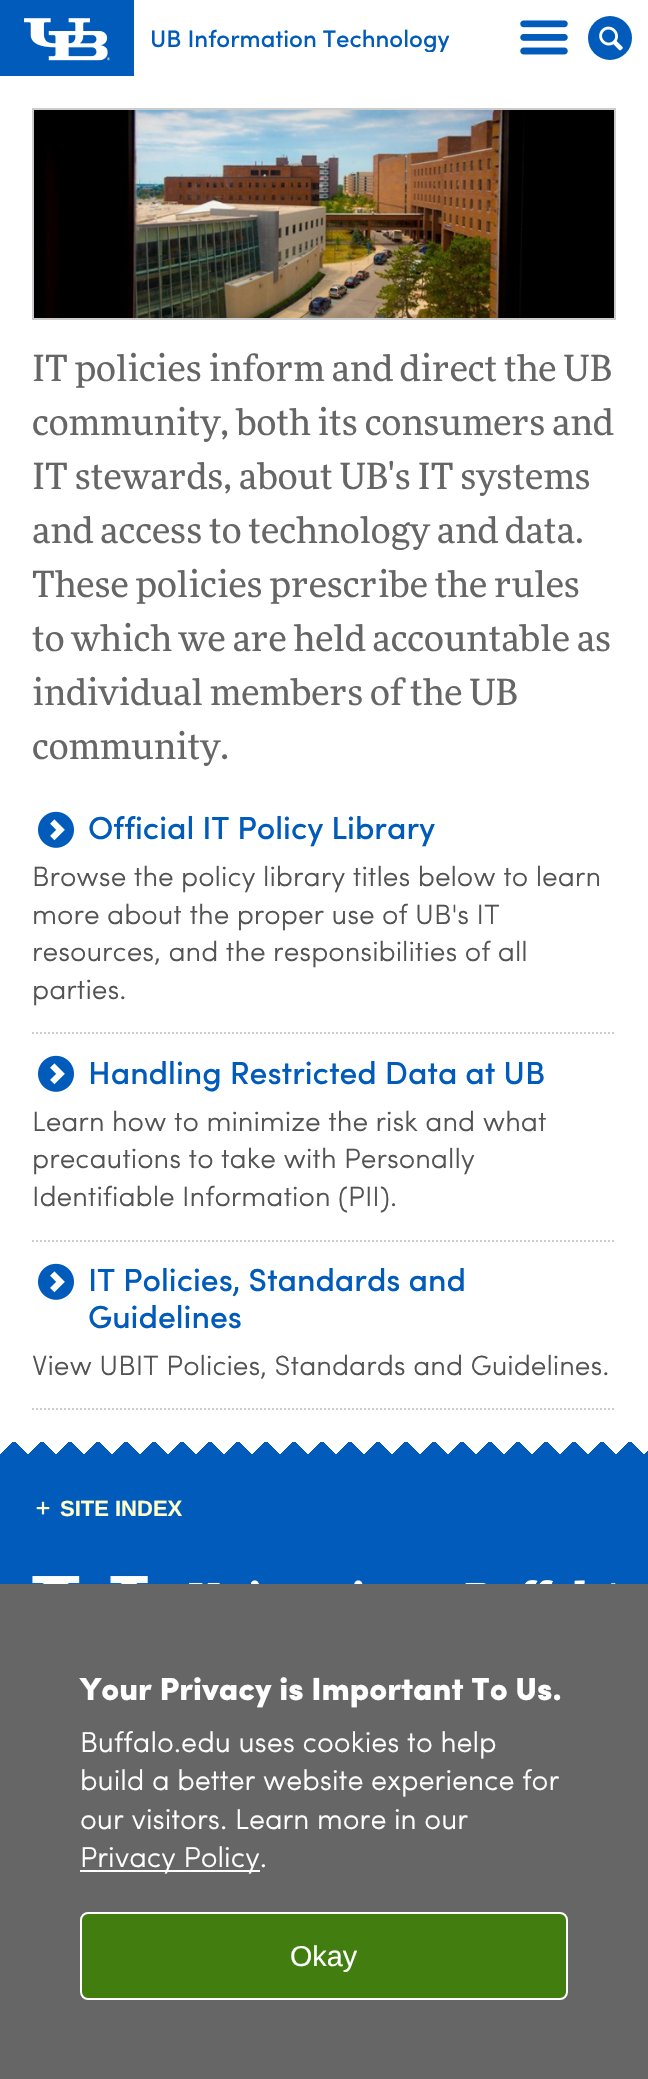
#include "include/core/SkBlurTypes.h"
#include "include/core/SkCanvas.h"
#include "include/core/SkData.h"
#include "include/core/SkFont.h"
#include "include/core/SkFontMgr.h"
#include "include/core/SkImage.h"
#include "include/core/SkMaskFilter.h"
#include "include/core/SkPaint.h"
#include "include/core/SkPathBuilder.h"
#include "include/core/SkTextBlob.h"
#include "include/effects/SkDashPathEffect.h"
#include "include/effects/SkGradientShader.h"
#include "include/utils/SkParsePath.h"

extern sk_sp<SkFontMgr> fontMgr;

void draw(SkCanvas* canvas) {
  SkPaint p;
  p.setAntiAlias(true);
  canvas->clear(SkColorSetRGB(0, 91, 187));
  p.setColor(SK_ColorWHITE);
  canvas->drawRect(SkRect::MakeLTRB(0, 76, 648, 1442), p);
  canvas->drawRect(SkRect::MakeLTRB(134, 0, 648, 76), p);
  canvas->drawImageRect(SkImages::DeferredFromEncodedData(SkData::MakeFromFileName("images/1.png")), SkRect::MakeLTRB(24, 18, 110, 61), SkSamplingOptions());
  canvas->drawImageRect(SkImages::DeferredFromEncodedData(SkData::MakeFromFileName("images/2.png")), SkRect::MakeLTRB(520, 20, 568, 55), SkSamplingOptions());
  p.setColor(SkColorSetRGB(0, 91, 187));
  canvas->drawCircle(610, 38, 22, p);
  canvas->drawImageRect(SkImages::DeferredFromEncodedData(SkData::MakeFromFileName("images/3.png")), SkRect::MakeLTRB(599, 26, 623, 51), SkSamplingOptions());
  p.setStyle(SkPaint::kStroke_Style);
  p.setStrokeWidth(2);
  p.setColor(SkColorSetRGB(204, 204, 204));
  canvas->drawRect(SkRect::MakeLTRB(33, 109, 615, 319), p);
  canvas->drawImageRect(SkImages::DeferredFromEncodedData(SkData::MakeFromFileName("images/4.png")), SkRect::MakeLTRB(34, 110, 614, 318), SkSamplingOptions());
  p.setPathEffect(SkDashPathEffect::Make({{2, 2}}, 0));
  canvas->drawPath(SkPathBuilder().moveTo(32, 1033).lineTo(616, 1033).detach(), p);
  p.setPathEffect(nullptr);
  canvas->drawImageRect(SkImages::DeferredFromEncodedData(SkData::MakeFromFileName("images/5.png")), SkRect::MakeLTRB(38, 811, 74, 848), SkSamplingOptions());
  p.setPathEffect(SkDashPathEffect::Make({{2, 2}}, 0));
  canvas->drawPath(SkPathBuilder().moveTo(32, 1241).lineTo(616, 1241).detach(), p);
  p.setPathEffect(nullptr);
  canvas->drawImageRect(SkImages::DeferredFromEncodedData(SkData::MakeFromFileName("images/5.png")), SkRect::MakeLTRB(38, 1055, 74, 1092), SkSamplingOptions());
  p.setPathEffect(SkDashPathEffect::Make({{2, 2}}, 0));
  canvas->drawPath(SkPathBuilder().moveTo(32, 1409).lineTo(616, 1409).detach(), p);
  p.setPathEffect(nullptr);
  canvas->drawImageRect(SkImages::DeferredFromEncodedData(SkData::MakeFromFileName("images/5.png")), SkRect::MakeLTRB(38, 1263, 74, 1300), SkSamplingOptions());
  canvas->drawImageRect(SkImages::DeferredFromEncodedData(SkData::MakeFromFileName("images/6.png")), SkRect::MakeLTRB(0, 1442, 648, 1454), SkSamplingOptions());
  canvas->drawImageRect(SkImages::DeferredFromEncodedData(SkData::MakeFromFileName("images/7.png")), SkRect::MakeLTRB(16, 1442, 644, 1454), SkSamplingOptions());
  canvas->drawImageRect(SkImages::DeferredFromEncodedData(SkData::MakeFromFileName("images/8.png")), SkRect::MakeLTRB(36, 1501, 50, 1515), SkSamplingOptions());
  canvas->drawImageRect(SkImages::DeferredFromEncodedData(SkData::MakeFromFileName("images/9.png")), SkRect::MakeLTRB(32, 1576, 616, 1584), SkSamplingOptions());
  p.setStyle(SkPaint::kFill_Style);
  p.setColor(SkColorSetRGB(102, 102, 102));
  canvas->drawRect(SkRect::MakeLTRB(0, 1584, 648, 2079), p);
  p.setColor(SK_ColorWHITE);
  canvas->drawRect(SkRect::MakeLTRB(80, 1870, 260, 1872), p);
  p.setColor(SkColorSetRGB(66, 125, 16));
  canvas->drawRoundRect(SkRect::MakeLTRB(81, 1913, 567, 1999), 7, 7, p);
  p.setStyle(SkPaint::kStroke_Style);
  p.setColor(SK_ColorWHITE);
  canvas->drawRoundRect(SkRect::MakeLTRB(81, 1913, 567, 1999), 7, 7, p);
  canvas->save();
  canvas->clipRect(SkRect::MakeLTRB(150, 22, 464, 52));
  SkFont font1(fontMgr->matchFamilyStyle("Sofia", SkFontStyle(500, SkFontStyle::kNormal_Width, SkFontStyle::kUpright_Slant)), 24);
  font1.setSubpixel(true);
  p.setStyle(SkPaint::kFill_Style);
  p.setColor(SkColorSetRGB(0, 91, 187));
  canvas->drawString("UB Information Technology", 150, 47, font1, p);
  canvas->restore();
  SkFont font2(fontMgr->matchFamilyStyle("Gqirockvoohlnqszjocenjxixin", SkFontStyle::Normal()), 36);
  font2.setSubpixel(true);
  p.setColor(SkColorSetRGB(102, 102, 102));
  canvas->drawString("IT policies inform and direct the UB", 32, 381, font2, p);
  canvas->drawString("community, both its consumers and", 32, 435, font2, p);
  canvas->drawString("IT stewards, about UB's IT systems", 32, 489, font2, p);
  canvas->drawString("and access to technology and data.", 32, 543, font2, p);
  canvas->drawString("These policies prescribe the rules", 32, 597, font2, p);
  canvas->drawString("to which we are held accountable as", 32, 651, font2, p);
  canvas->drawString("individual members of the UB", 32, 705, font2, p);
  canvas->drawString("community.", 32, 759, font2, p);
  SkFont font3(fontMgr->matchFamilyStyle("Sofia", SkFontStyle(500, SkFontStyle::kNormal_Width, SkFontStyle::kUpright_Slant)), 32);
  font3.setSubpixel(true);
  p.setColor(SkColorSetRGB(0, 91, 187));
  canvas->drawString("Official IT Policy Library", 88, 839, font3, p);
  SkFont font4(fontMgr->matchFamilyStyle("Sofia", SkFontStyle::Normal()), 28);
  font4.setSubpixel(true);
  p.setColor(SkColorSetRGB(83, 83, 83));
  canvas->drawString("Browse the policy library titles below to learn", 32, 886, font4, p);
  canvas->drawString("more about the proper use of UB's IT", 32, 924, font4, p);
  canvas->drawString("resources, and the responsibilities of all", 32, 961, font4, p);
  canvas->drawString("parties.", 32, 999, font4, p);
  p.setColor(SkColorSetRGB(0, 91, 187));
  canvas->drawString("Handling Restricted Data at UB", 88, 1084, font3, p);
  p.setColor(SkColorSetRGB(83, 83, 83));
  canvas->drawString("Learn how to minimize the risk and what", 32, 1131, font4, p);
  canvas->drawString("precautions to take with Personally", 32, 1168, font4, p);
  canvas->drawString("Identifiable Information (PII).", 32, 1206, font4, p);
  p.setColor(SkColorSetRGB(0, 91, 187));
  canvas->drawString("IT Policies, Standards and", 88, 1291, font3, p);
  canvas->drawString("Guidelines", 88, 1328, font3, p);
  p.setColor(SkColorSetRGB(83, 83, 83));
  canvas->drawString("View UBIT Policies, Standards and Guidelines.", 32, 1375, font4, p);
  SkFont font5(fontMgr->matchFamilyStyle("Liberation Sans", SkFontStyle::Bold()), 22);
  font5.setSubpixel(true);
  p.setColor(SkColorSetRGB(255, 255, 204));
  canvas->drawString("SITE INDEX", 60, 1516, font5, p);
  SkFont font6(fontMgr->matchFamilyStyle("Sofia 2", SkFontStyle::Normal()), 32);
  font6.setSubpixel(true);
  p.setColor(SK_ColorWHITE);
  canvas->drawString("Your Privacy is Important To Us.", 80, 1700, font6, p);
  SkFont font7(fontMgr->matchFamilyStyle("Sofia", SkFontStyle::Normal()), 28.75f);
  font7.setSubpixel(true);
  canvas->drawString("Buffalo.edu uses cookies to help", 80, 1752, font7, p);
  canvas->drawString("build a better website experience for", 80, 1790, font7, p);
  canvas->drawString("our visitors. Learn more in our", 80, 1829, font7, p);
  canvas->drawString("Privacy Policy.", 80, 1867, font7, p);
  SkFont font8(fontMgr->matchFamilyStyle("Liberation Sans", SkFontStyle::Normal()), 28.75f);
  font8.setSubpixel(true);
  canvas->drawString("Okay", 290, 1966, font8, p);
}
